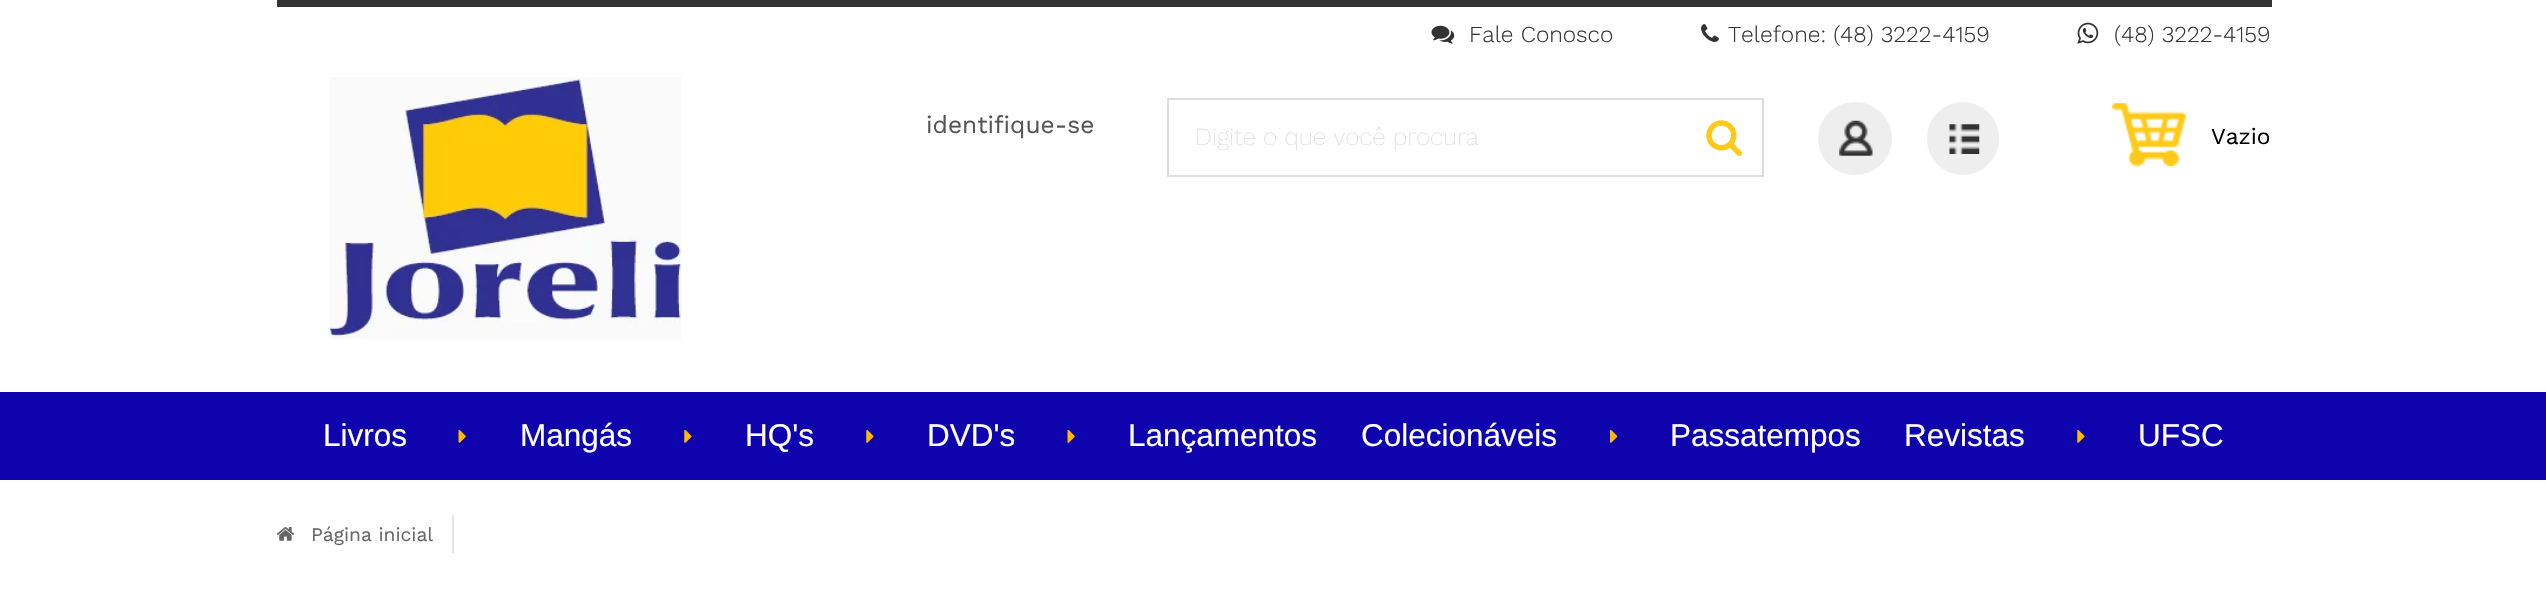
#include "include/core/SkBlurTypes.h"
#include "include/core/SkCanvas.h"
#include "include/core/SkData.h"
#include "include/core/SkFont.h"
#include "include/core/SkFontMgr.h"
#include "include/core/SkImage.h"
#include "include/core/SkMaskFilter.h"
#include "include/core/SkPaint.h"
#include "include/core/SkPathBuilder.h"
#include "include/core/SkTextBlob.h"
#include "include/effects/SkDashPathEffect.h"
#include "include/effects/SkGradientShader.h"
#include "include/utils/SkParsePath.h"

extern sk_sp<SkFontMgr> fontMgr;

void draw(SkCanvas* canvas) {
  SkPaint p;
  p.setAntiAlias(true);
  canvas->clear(SK_ColorWHITE);
  p.setColor(SkColorSetRGB(51, 51, 51));
  canvas->drawRect(SkRect::MakeLTRB(277, 0, 2272, 7), p);
  canvas->drawImageRect(SkImages::DeferredFromEncodedData(SkData::MakeFromFileName("images/1.png")), SkRect::MakeLTRB(1431, 25, 1455, 44), SkSamplingOptions());
  canvas->drawImageRect(SkImages::DeferredFromEncodedData(SkData::MakeFromFileName("images/2.png")), SkRect::MakeLTRB(1701, 24, 1719, 42), SkSamplingOptions());
  canvas->drawImageRect(SkImages::DeferredFromEncodedData(SkData::MakeFromFileName("images/3.png")), SkRect::MakeLTRB(2077, 22, 2099, 44), SkSamplingOptions());
  canvas->drawImageRect(SkImages::DeferredFromEncodedData(SkData::MakeFromFileName("images/4.png")), SkRect::MakeLTRB(329, 77, 682, 340), SkSamplingOptions());
  p.setStyle(SkPaint::kStroke_Style);
  p.setStrokeWidth(2);
  p.setColor(SkColorSetRGB(221, 221, 221));
  canvas->drawRect(SkRect::MakeLTRB(1168, 99, 1763, 176), p);
  canvas->drawImageRect(SkImages::DeferredFromEncodedData(SkData::MakeFromFileName("images/5.png")), SkRect::MakeLTRB(1706, 120, 1742, 156), SkSamplingOptions());
  p.setStyle(SkPaint::kFill_Style);
  p.setColor(SkColorSetRGB(238, 238, 238));
  canvas->drawRoundRect(SkRect::MakeLTRB(1818, 102, 1892, 175), 36.5f, 36.5f, p);
  canvas->drawImageRect(SkImages::DeferredFromEncodedData(SkData::MakeFromFileName("images/6.png")), SkRect::MakeLTRB(1839, 120, 1873, 156), SkSamplingOptions());
  canvas->drawRoundRect(SkRect::MakeLTRB(1927, 102, 1999, 175), 36, 36, p);
  canvas->drawImageRect(SkImages::DeferredFromEncodedData(SkData::MakeFromFileName("images/7.png")), SkRect::MakeLTRB(1949, 124, 1980, 154), SkSamplingOptions());
  canvas->drawImageRect(SkImages::DeferredFromEncodedData(SkData::MakeFromFileName("images/8.png")), SkRect::MakeLTRB(2112, 103, 2186, 167), SkSamplingOptions());
  p.setColor(SkColorSetRGB(14, 3, 173));
  canvas->drawRect(SkRect::MakeLTRB(0, 392, 2546, 480), p);
  canvas->drawImageRect(SkImages::DeferredFromEncodedData(SkData::MakeFromFileName("images/9.png")), SkRect::MakeLTRB(458, 429, 466, 443), SkSamplingOptions());
  canvas->drawImageRect(SkImages::DeferredFromEncodedData(SkData::MakeFromFileName("images/10.png")), SkRect::MakeLTRB(684, 429, 692, 443), SkSamplingOptions());
  canvas->drawImageRect(SkImages::DeferredFromEncodedData(SkData::MakeFromFileName("images/10.png")), SkRect::MakeLTRB(866, 429, 874, 443), SkSamplingOptions());
  canvas->drawImageRect(SkImages::DeferredFromEncodedData(SkData::MakeFromFileName("images/9.png")), SkRect::MakeLTRB(1067, 429, 1075, 443), SkSamplingOptions());
  canvas->drawImageRect(SkImages::DeferredFromEncodedData(SkData::MakeFromFileName("images/11.png")), SkRect::MakeLTRB(1610, 429, 1618, 443), SkSamplingOptions());
  canvas->drawImageRect(SkImages::DeferredFromEncodedData(SkData::MakeFromFileName("images/10.png")), SkRect::MakeLTRB(2077, 429, 2085, 443), SkSamplingOptions());
  canvas->drawImageRect(SkImages::DeferredFromEncodedData(SkData::MakeFromFileName("images/12.png")), SkRect::MakeLTRB(276, 527, 294, 541), SkSamplingOptions());
  p.setColor(SkColorSetRGB(230, 230, 230));
  canvas->drawRect(SkRect::MakeLTRB(452, 515, 454, 553), p);
  SkFont font1(fontMgr->matchFamilyStyle("Work Sans", SkFontStyle(300, SkFontStyle::kNormal_Width, SkFontStyle::kUpright_Slant)), 22.75f);
  font1.setSubpixel(true);
  p.setColor(SkColorSetRGB(51, 51, 51));
  canvas->drawString("Fale Conosco", 1469, 42, font1, p);
  canvas->drawString("Telefone: (48) 3222-4159", 1728, 42, font1, p);
  canvas->drawString("(48) 3222-4159", 2114, 42, font1, p);
  SkFont font2(fontMgr->matchFamilyStyle("Work Sans", SkFontStyle::Normal()), 24.5f);
  font2.setSubpixel(true);
  p.setColor(SkColorSetRGB(85, 85, 85));
  canvas->drawString("identifique-se", 926, 133, font2, p);
  SkFont font3(fontMgr->matchFamilyStyle("Work Sans", SkFontStyle(200, SkFontStyle::kNormal_Width, SkFontStyle::kUpright_Slant)), 24.5f);
  font3.setSubpixel(true);
  p.setColor(SkColorSetRGB(221, 221, 221));
  canvas->drawString("Digite o que você procura", 1195, 145, font3, p);
  SkFont font4(fontMgr->matchFamilyStyle("Work Sans", SkFontStyle::Normal()), 22.75f);
  font4.setSubpixel(true);
  p.setColor(SK_ColorBLACK);
  canvas->drawString("Vazio", 2211, 144, font4, p);
  SkFont font5(fontMgr->matchFamilyStyle("Liberation Sans", SkFontStyle::Normal()), 31.5f);
  font5.setSubpixel(true);
  p.setColor(SK_ColorWHITE);
  canvas->drawString("Livros", 323, 446, font5, p);
  canvas->drawString("Mangás", 520, 446, font5, p);
  canvas->drawString("HQ's", 745, 446, font5, p);
  canvas->drawString("DVD's", 927, 446, font5, p);
  canvas->drawString("Lançamentos", 1128, 446, font5, p);
  canvas->drawString("Colecionáveis", 1361, 446, font5, p);
  canvas->drawString("Passatempos", 1670, 446, font5, p);
  canvas->drawString("Revistas", 1904, 446, font5, p);
  canvas->drawString("UFSC", 2138, 446, font5, p);
  SkFont font6(fontMgr->matchFamilyStyle("Work Sans", SkFontStyle::Normal()), 19.25f);
  font6.setSubpixel(true);
  p.setColor(SkColorSetRGB(102, 102, 102));
  canvas->drawString("Página inicial", 311, 541, font6, p);
}
